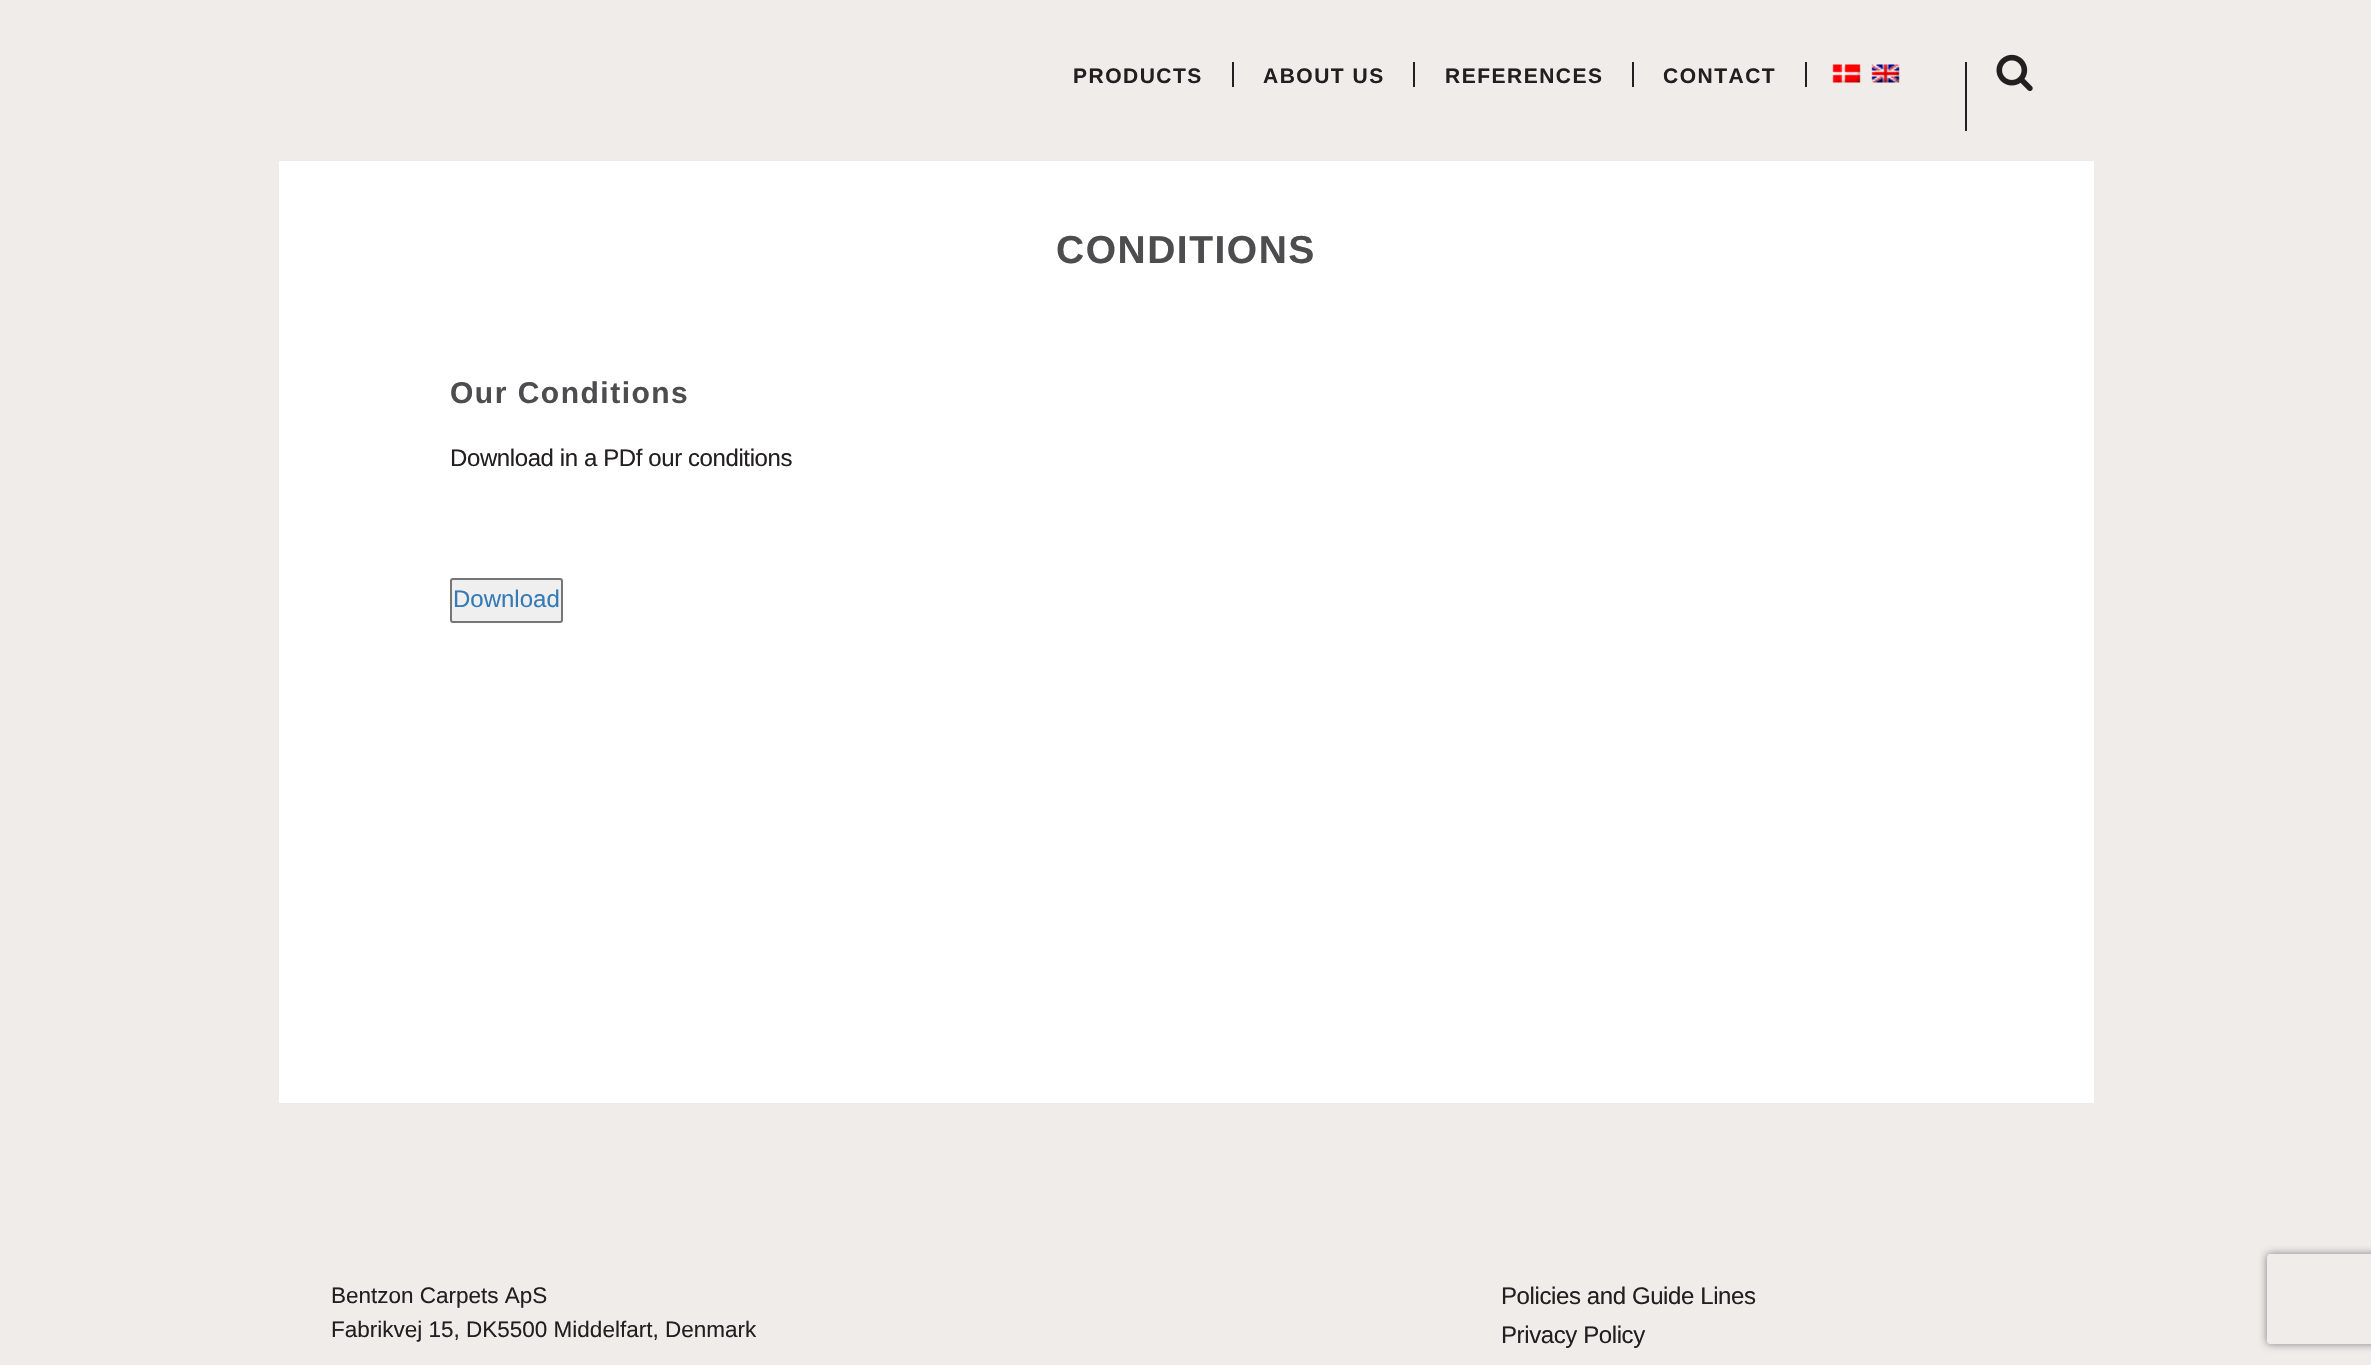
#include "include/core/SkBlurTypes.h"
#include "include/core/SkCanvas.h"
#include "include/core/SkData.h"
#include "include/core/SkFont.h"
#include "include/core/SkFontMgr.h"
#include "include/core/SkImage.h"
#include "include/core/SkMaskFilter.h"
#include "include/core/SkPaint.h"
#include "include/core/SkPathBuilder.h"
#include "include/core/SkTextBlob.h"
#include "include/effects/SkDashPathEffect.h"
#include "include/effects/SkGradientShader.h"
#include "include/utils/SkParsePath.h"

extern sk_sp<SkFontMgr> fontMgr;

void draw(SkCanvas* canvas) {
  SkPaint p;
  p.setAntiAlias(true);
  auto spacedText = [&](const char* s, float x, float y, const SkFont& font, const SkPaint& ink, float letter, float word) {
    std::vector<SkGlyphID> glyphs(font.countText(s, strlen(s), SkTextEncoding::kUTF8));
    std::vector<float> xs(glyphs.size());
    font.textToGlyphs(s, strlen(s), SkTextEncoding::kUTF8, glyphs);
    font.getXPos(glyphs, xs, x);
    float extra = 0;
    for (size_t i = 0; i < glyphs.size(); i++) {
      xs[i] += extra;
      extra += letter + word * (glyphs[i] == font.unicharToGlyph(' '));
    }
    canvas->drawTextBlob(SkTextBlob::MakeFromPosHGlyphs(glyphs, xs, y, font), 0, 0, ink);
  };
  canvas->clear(SkColorSetRGB(239, 236, 233));
  p.setColor(SkColorSetRGB(35, 31, 32));
  canvas->drawRect(SkRect::MakeLTRB(1232, 62, 1234, 87), p);
  canvas->drawRect(SkRect::MakeLTRB(1413, 62, 1415, 87), p);
  canvas->drawRect(SkRect::MakeLTRB(1632, 62, 1634, 87), p);
  canvas->drawRect(SkRect::MakeLTRB(1805, 62, 1807, 87), p);
  canvas->drawRect(SkRect::MakeLTRB(1965, 62, 1967, 131), p);
  canvas->drawImageRect(SkImages::DeferredFromEncodedData(SkData::MakeFromFileName("images/1.png")), SkRect::MakeLTRB(1832, 64, 1861, 83), SkSamplingOptions());
  canvas->drawImageRect(SkImages::DeferredFromEncodedData(SkData::MakeFromFileName("images/2.png")), SkRect::MakeLTRB(1871, 64, 1900, 83), SkSamplingOptions());
  canvas->drawImageRect(SkImages::DeferredFromEncodedData(SkData::MakeFromFileName("images/3.png")), SkRect::MakeLTRB(1996, 54, 2033, 91), SkSamplingOptions());
  p.setColor(SK_ColorWHITE);
  canvas->drawRect(SkRect::MakeLTRB(279, 161, 2094, 1103), p);
  p.setColor(SkColorSetRGB(239, 239, 239));
  canvas->drawRoundRect(SkRect::MakeLTRB(451, 579, 562, 622), 2, 2, p);
  p.setStyle(SkPaint::kStroke_Style);
  p.setStrokeWidth(2);
  p.setColor(SkColorSetRGB(118, 118, 118));
  canvas->drawRoundRect(SkRect::MakeLTRB(451, 579, 562, 622), 2, 2, p);
  canvas->save();
  canvas->clipPath(SkPathBuilder(SkPathFillType::kEvenOdd).moveTo(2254, 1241).lineTo(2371, 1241).lineTo(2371, 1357).lineTo(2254, 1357).close().moveTo(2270, 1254).lineTo(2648, 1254).cubicTo(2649.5f, 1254, 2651, 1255.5f, 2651, 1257).lineTo(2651, 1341).cubicTo(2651, 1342.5f, 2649.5f, 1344, 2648, 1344).lineTo(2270, 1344).cubicTo(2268.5f, 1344, 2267, 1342.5f, 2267, 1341).lineTo(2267, 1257).cubicTo(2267, 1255.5f, 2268.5f, 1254, 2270, 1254).close().detach(), true);
  p.setStyle(SkPaint::kFill_Style);
  p.setColor(SkColorSetRGB(128, 128, 128));
  p.setMaskFilter(SkMaskFilter::MakeBlur(kNormal_SkBlurStyle, 4));
  canvas->drawRoundRect(SkRect::MakeLTRB(2267, 1254, 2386, 1344), 3, 3, p);
  p.setMaskFilter(nullptr);
  canvas->restore();
  SkFont font1(fontMgr->matchFamilyStyle("Liberation Sans", SkFontStyle::Bold()), 21);
  font1.setSubpixel(true);
  p.setColor(SkColorSetRGB(35, 31, 32));
  spacedText("PRODUCTS", 1073, 83, font1, p, 1.5f, 0);
  spacedText("ABOUT US", 1263, 83, font1, p, 1.5f, 0);
  spacedText("REFERENCES", 1445, 83, font1, p, 1.5f, 0);
  spacedText("CONTACT", 1663, 83, font1, p, 1.5f, 0);
  SkFont font2(fontMgr->matchFamilyStyle("Liberation Sans", SkFontStyle::Bold()), 39);
  font2.setSubpixel(true);
  p.setColor(SkColorSetRGB(77, 77, 79));
  spacedText("CONDITIONS", 1056, 263, font2, p, 1.5f, 0);
  SkFont font3(fontMgr->matchFamilyStyle("Liberation Sans", SkFontStyle::Bold()), 30);
  font3.setSubpixel(true);
  spacedText("Our Conditions", 450, 403, font3, p, 1.5f, 0);
  SkFont font4(fontMgr->matchFamilyStyle("Liberation Sans", SkFontStyle::Normal()), 24);
  font4.setSubpixel(true);
  p.setColor(SkColorSetRGB(35, 31, 32));
  spacedText("Download in a PDf our conditions", 450, 466, font4, p, -0.4f, 0);
  p.setColor(SkColorSetRGB(51, 122, 183));
  canvas->drawString("Download", 453, 607, font4, p);
  SkFont font5(fontMgr->matchFamilyStyle("Liberation Sans", SkFontStyle::Normal()), 22.5f);
  font5.setSubpixel(true);
  p.setColor(SkColorSetRGB(35, 31, 32));
  canvas->drawString("Bentzon Carpets ApS", 331, 1303, font5, p);
  canvas->drawString("Fabrikvej 15, DK5500 Middelfart, Denmark", 331, 1337, font5, p);
  spacedText("Policies and Guide Lines", 1501, 1304, font4, p, -0.4f, 0);
  spacedText("Privacy Policy", 1501, 1343, font4, p, -0.4f, 0);
}
